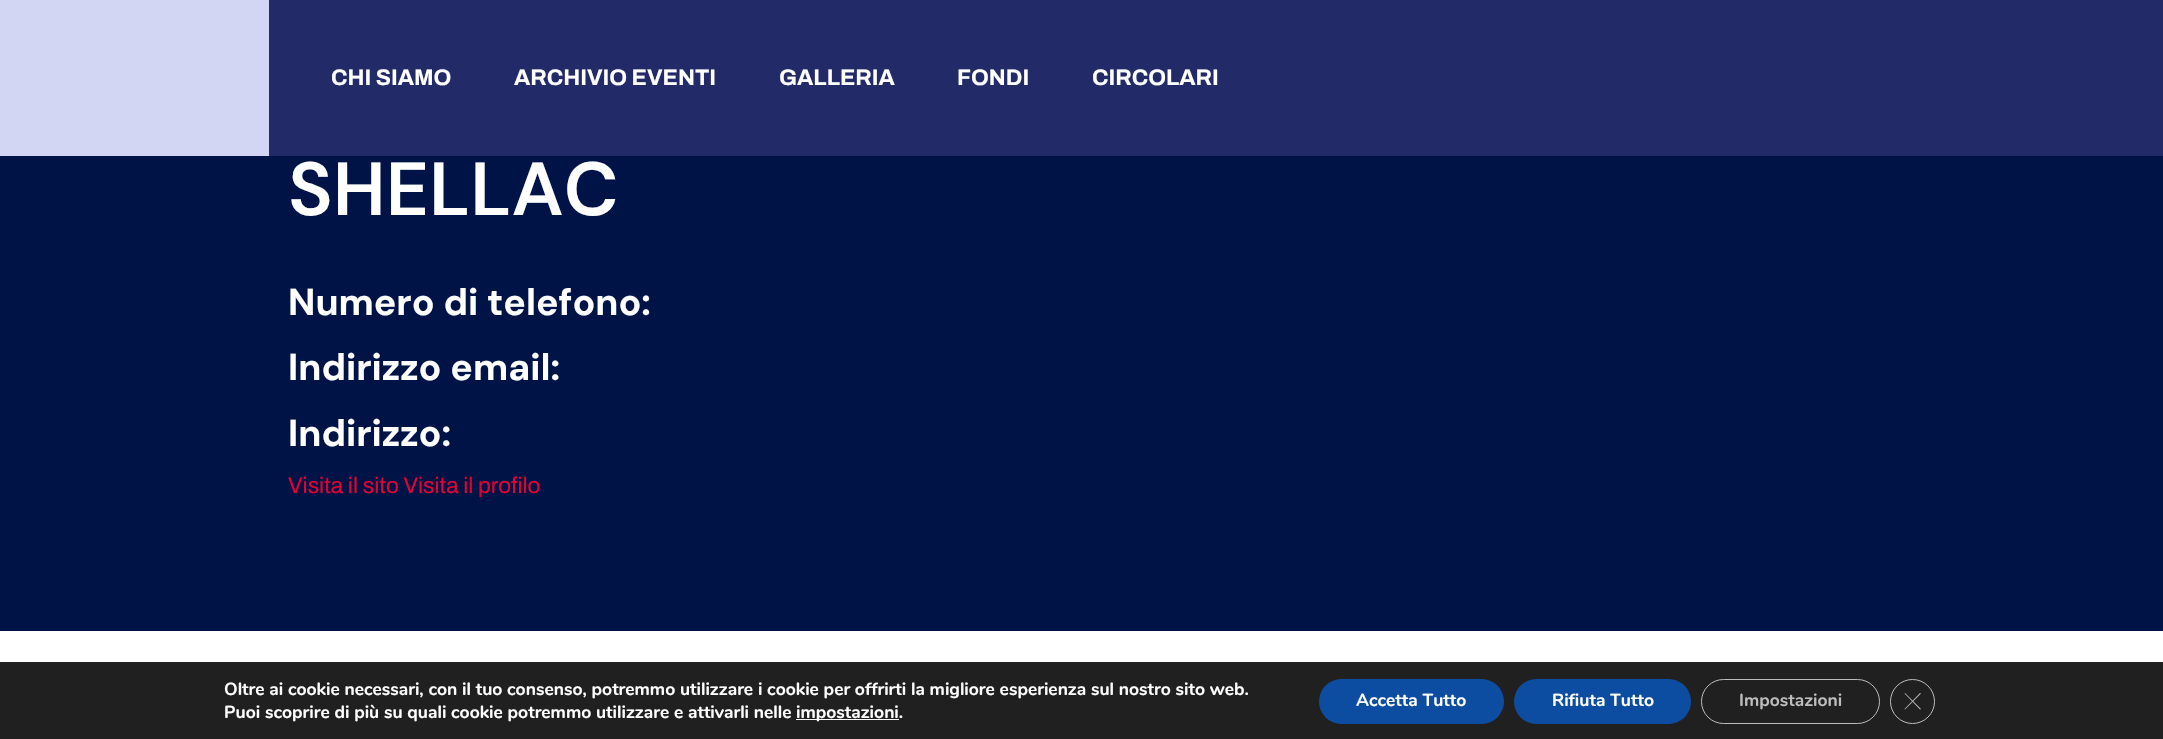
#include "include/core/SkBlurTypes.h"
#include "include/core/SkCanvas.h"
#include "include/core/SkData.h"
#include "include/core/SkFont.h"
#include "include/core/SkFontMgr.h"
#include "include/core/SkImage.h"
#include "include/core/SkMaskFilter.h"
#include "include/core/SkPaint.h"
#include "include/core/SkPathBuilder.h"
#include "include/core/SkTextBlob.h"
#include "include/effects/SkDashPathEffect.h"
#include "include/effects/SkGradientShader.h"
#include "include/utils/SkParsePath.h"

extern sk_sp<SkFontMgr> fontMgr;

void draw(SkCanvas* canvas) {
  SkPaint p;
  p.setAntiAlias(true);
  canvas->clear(SK_ColorWHITE);
  p.setColor(SkColorSetRGB(34, 42, 104));
  canvas->drawRect(SkRect::MakeLTRB(269, 0, 2163, 156), p);
  p.setColor(SkColorSetRGB(210, 214, 243));
  canvas->drawRect(SkRect::MakeLTRB(0, 0, 269, 156), p);
  p.setColor(SkColorSetRGB(0, 19, 70));
  canvas->drawRect(SkRect::MakeLTRB(0, 156, 2163, 631), p);
  p.setColor(SkColorSetRGB(32, 32, 32));
  canvas->drawRect(SkRect::MakeLTRB(0, 662, 2163, 739), p);
  p.setColor(SK_ColorWHITE);
  canvas->drawRect(SkRect::MakeLTRB(796, 719, 899, 720), p);
  p.setColor(SkColorSetRGB(12, 77, 162));
  canvas->drawRoundRect(SkRect::MakeLTRB(1319, 679, 1504, 724), 22.5f, 22.5f, p);
  canvas->drawRoundRect(SkRect::MakeLTRB(1514, 679, 1691, 724), 22.5f, 22.5f, p);
  p.setStyle(SkPaint::kStroke_Style);
  p.setStrokeWidth(1);
  p.setColor(SkColorSetRGB(188, 188, 188));
  canvas->drawRoundRect(SkRect::MakeLTRB(1701.5f, 679.5f, 1879.5f, 723.5f), 22, 22, p);
  canvas->drawCircle(1912.5f, 701.5f, 22, p);
  p.setStyle(SkPaint::kFill_Style);
  canvas->drawPath(SkPathBuilder().moveTo(1920, 693).lineTo(1921, 693.5f).lineTo(1905, 709.5f).lineTo(1904.5f, 709).close().detach(), p);
  canvas->drawPath(SkPathBuilder().moveTo(1904.5f, 693.5f).lineTo(1905, 693).lineTo(1921, 709).lineTo(1920, 709.5f).close().detach(), p);
  SkFont font1(fontMgr->matchFamilyStyle("Archivo", SkFontStyle::Bold()), 22.5f);
  font1.setSubpixel(true);
  p.setColor(SK_ColorWHITE);
  canvas->drawString("CHI SIAMO", 331, 85, font1, p);
  canvas->drawString("ARCHIVIO EVENTI", 514, 85, font1, p);
  canvas->drawString("GALLERIA", 779, 85, font1, p);
  canvas->drawString("FONDI", 957, 85, font1, p);
  canvas->drawString("CIRCOLARI", 1092, 85, font1, p);
  SkFont font2(fontMgr->matchFamilyStyle("DM Sans", SkFontStyle(600, SkFontStyle::kNormal_Width, SkFontStyle::kUpright_Slant)), 75);
  font2.setSubpixel(true);
  canvas->drawString("SHELLAC", 288, 215, font2, p);
  SkFont font3(fontMgr->matchFamilyStyle("DM Sans", SkFontStyle::Bold()), 37.5f);
  font3.setSubpixel(true);
  canvas->drawString("Numero di telefono:", 288, 315, font3, p);
  canvas->drawString("Indirizzo email:", 288, 380, font3, p);
  canvas->drawString("Indirizzo:", 288, 446, font3, p);
  SkFont font4(fontMgr->matchFamilyStyle("Archivo", SkFontStyle::Normal()), 22.5f);
  font4.setSubpixel(true);
  p.setColor(SkColorSetRGB(229, 0, 50));
  canvas->drawString("Visita il sito Visita il profilo", 288, 493, font4, p);
  SkFont font5(fontMgr->matchFamilyStyle("Nunito", SkFontStyle::Bold()), 17.5f);
  font5.setSubpixel(true);
  p.setColor(SK_ColorWHITE);
  canvas->drawString("Oltre ai cookie necessari, con il tuo consenso, potremmo utilizzare i cookie per offrirti la migliore esperienza sul nostro sito web.", 224, 695, font5, p);
  canvas->drawString("Puoi scoprire di più su quali cookie potremmo utilizzare e attivarli nelle", 224, 718, font5, p);
  canvas->drawString("impostazioni.", 796, 718, font5, p);
  canvas->drawString("Accetta Tutto", 1356, 706, font5, p);
  canvas->drawString("Rifiuta Tutto", 1552, 706, font5, p);
  p.setColor(SkColorSetRGB(188, 188, 188));
  canvas->drawString("Impostazioni", 1739, 706, font5, p);
}
